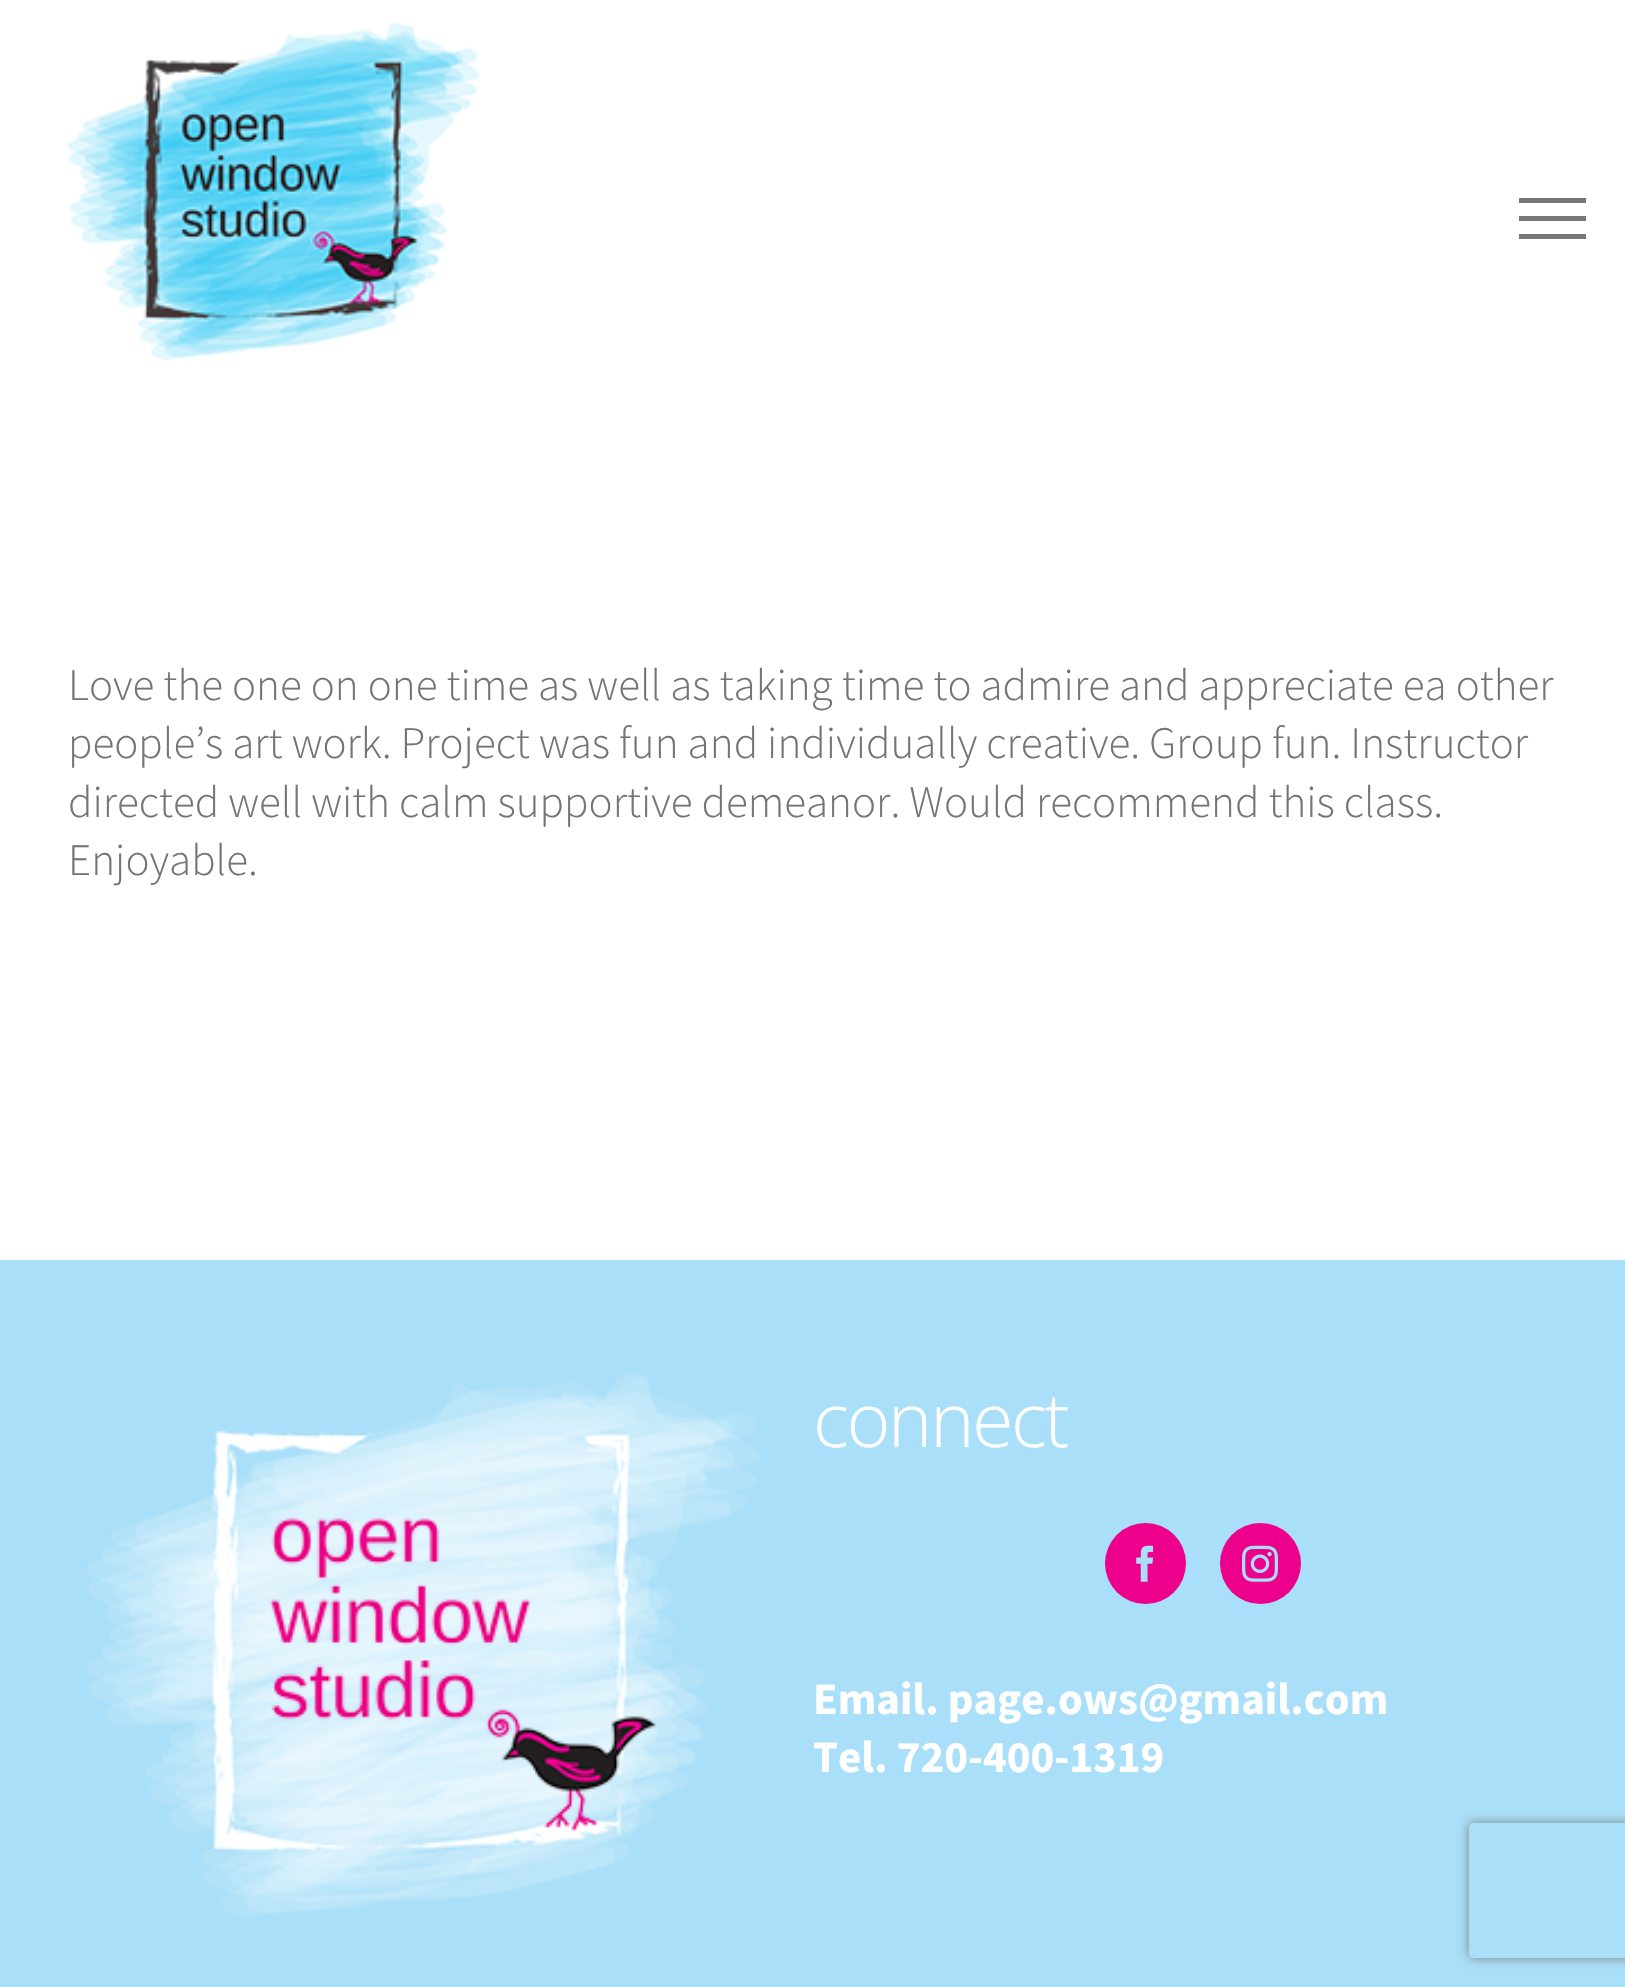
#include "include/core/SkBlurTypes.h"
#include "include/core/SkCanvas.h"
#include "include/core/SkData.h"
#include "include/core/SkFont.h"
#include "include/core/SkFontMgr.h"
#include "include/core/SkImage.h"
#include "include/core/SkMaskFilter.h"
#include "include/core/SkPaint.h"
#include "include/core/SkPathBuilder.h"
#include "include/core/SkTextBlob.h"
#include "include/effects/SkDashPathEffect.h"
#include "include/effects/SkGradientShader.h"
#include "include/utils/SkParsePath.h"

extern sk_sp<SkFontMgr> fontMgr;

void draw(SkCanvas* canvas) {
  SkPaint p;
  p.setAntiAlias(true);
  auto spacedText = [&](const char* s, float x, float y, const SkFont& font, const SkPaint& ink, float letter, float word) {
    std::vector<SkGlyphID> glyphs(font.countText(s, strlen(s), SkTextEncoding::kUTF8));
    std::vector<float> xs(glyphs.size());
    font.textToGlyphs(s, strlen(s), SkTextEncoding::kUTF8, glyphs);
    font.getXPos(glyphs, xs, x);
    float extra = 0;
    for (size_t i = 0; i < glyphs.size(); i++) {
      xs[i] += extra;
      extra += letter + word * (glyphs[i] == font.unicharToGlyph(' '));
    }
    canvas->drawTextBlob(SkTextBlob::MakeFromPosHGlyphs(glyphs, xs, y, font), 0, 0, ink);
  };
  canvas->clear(SK_ColorWHITE);
  canvas->drawImageRect(SkImages::DeferredFromEncodedData(SkData::MakeFromFileName("images/1.png")), SkRect::MakeLTRB(67, 22, 480, 360), SkSamplingOptions());
  p.setColor(SkColorSetRGB(120, 120, 120));
  canvas->drawRect(SkRect::MakeLTRB(1519, 198, 1586, 203), p);
  canvas->drawRect(SkRect::MakeLTRB(1519, 216, 1586, 221), p);
  canvas->drawRect(SkRect::MakeLTRB(1519, 234, 1586, 239), p);
  p.setColor(SkColorSetRGB(169, 223, 248));
  canvas->drawRect(SkRect::MakeLTRB(0, 1260, 1625, 1987), p);
  canvas->drawImageRect(SkImages::DeferredFromEncodedData(SkData::MakeFromFileName("images/2.png")), SkRect::MakeLTRB(86, 1373, 761, 1917), SkSamplingOptions());
  p.setColor(SkColorSetRGB(236, 0, 140));
  canvas->drawCircle(1145.5f, 1563.5f, 40.5f, p);
  canvas->drawImageRect(SkImages::DeferredFromEncodedData(SkData::MakeFromFileName("images/3.png")), SkRect::MakeLTRB(1136, 1545, 1154, 1582), SkSamplingOptions());
  canvas->drawCircle(1260.5f, 1563.5f, 40.5f, p);
  canvas->drawImageRect(SkImages::DeferredFromEncodedData(SkData::MakeFromFileName("images/4.png")), SkRect::MakeLTRB(1242, 1545, 1278, 1582), SkSamplingOptions());
  canvas->save();
  canvas->clipPath(SkPathBuilder(SkPathFillType::kEvenOdd).moveTo(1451, 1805).lineTo(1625, 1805).lineTo(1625, 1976).lineTo(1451, 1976).close().moveTo(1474, 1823).lineTo(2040, 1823).cubicTo(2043, 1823, 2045, 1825, 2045, 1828).lineTo(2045, 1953).cubicTo(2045, 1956, 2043, 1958, 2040, 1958).lineTo(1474, 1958).cubicTo(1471, 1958, 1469, 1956, 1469, 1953).lineTo(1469, 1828).cubicTo(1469, 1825, 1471, 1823, 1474, 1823).close().detach(), true);
  p.setColor(SkColorSetRGB(128, 128, 128));
  p.setMaskFilter(SkMaskFilter::MakeBlur(kNormal_SkBlurStyle, 5.5f));
  canvas->drawRoundRect(SkRect::MakeLTRB(1469, 1823, 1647, 1958), 5, 5, p);
  p.setMaskFilter(nullptr);
  canvas->restore();
  SkFont font1(fontMgr->matchFamilyStyle("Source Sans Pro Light", SkFontStyle(300, SkFontStyle::kNormal_Width, SkFontStyle::kUpright_Slant)), 45);
  font1.setSubpixel(true);
  p.setColor(SkColorSetRGB(116, 116, 116));
  canvas->drawString("Love the one on one time as well as taking time to admire and appreciate ea other", 68, 700, font1, p);
  canvas->drawString("people’s art work. Project was fun and individually creative. Group fun. Instructor", 68, 758, font1, p);
  canvas->drawString("directed well with calm supportive demeanor. Would recommend this class.", 68, 817, font1, p);
  canvas->drawString("Enjoyable.", 68, 875, font1, p);
  SkFont font2(fontMgr->matchFamilyStyle("Open Sans", SkFontStyle(300, SkFontStyle::kNormal_Width, SkFontStyle::kUpright_Slant)), 75);
  font2.setSubpixel(true);
  p.setColor(SK_ColorWHITE);
  spacedText("connect", 813, 1447, font2, p, -2.25f, 0);
  SkFont font3(fontMgr->matchFamilyStyle("Source Sans Pro", SkFontStyle::Bold()), 45);
  font3.setSubpixel(true);
  canvas->drawString("Email. page.ows@gmail.com", 813, 1714, font3, p);
  canvas->drawString("Tel. 720-400-1319", 813, 1772, font3, p);
}
